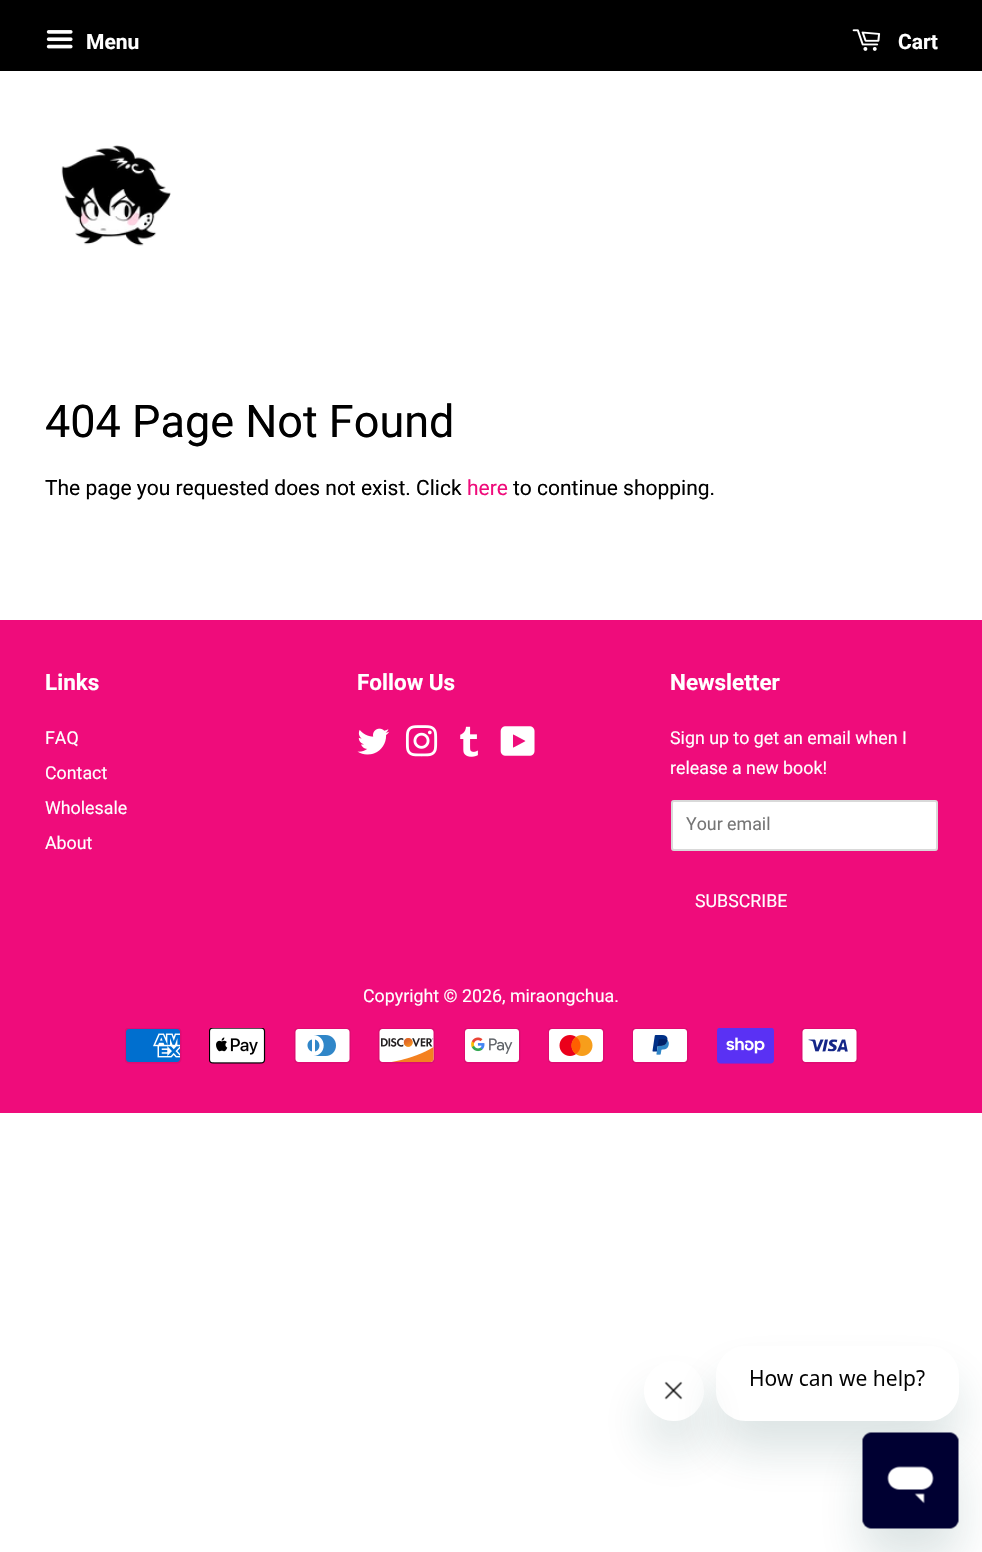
#include "include/core/SkBlurTypes.h"
#include "include/core/SkCanvas.h"
#include "include/core/SkData.h"
#include "include/core/SkFont.h"
#include "include/core/SkFontMgr.h"
#include "include/core/SkImage.h"
#include "include/core/SkMaskFilter.h"
#include "include/core/SkPaint.h"
#include "include/core/SkPathBuilder.h"
#include "include/core/SkTextBlob.h"
#include "include/effects/SkDashPathEffect.h"
#include "include/effects/SkGradientShader.h"
#include "include/utils/SkParsePath.h"

extern sk_sp<SkFontMgr> fontMgr;

void draw(SkCanvas* canvas) {
  SkPaint p;
  p.setAntiAlias(true);
  canvas->clear(SK_ColorWHITE);
  p.setColor(SK_ColorBLACK);
  canvas->drawRect(SkRect::MakeLTRB(0, 0, 982, 71), p);
  canvas->drawImageRect(SkImages::DeferredFromEncodedData(SkData::MakeFromFileName("images/1.png")), SkRect::MakeLTRB(46, 30, 73, 49), SkSamplingOptions());
  canvas->drawImageRect(SkImages::DeferredFromEncodedData(SkData::MakeFromFileName("images/2.png")), SkRect::MakeLTRB(852, 29, 881, 51), SkSamplingOptions());
  canvas->drawImageRect(SkImages::DeferredFromEncodedData(SkData::MakeFromFileName("images/3.png")), SkRect::MakeLTRB(61, 145, 171, 246), SkSamplingOptions());
  p.setColor(SkColorSetRGB(239, 12, 123));
  canvas->drawRect(SkRect::MakeLTRB(0, 620, 982, 1113), p);
  canvas->drawImageRect(SkImages::DeferredFromEncodedData(SkData::MakeFromFileName("images/4.png")), SkRect::MakeLTRB(357, 728, 390, 755), SkSamplingOptions());
  canvas->drawImageRect(SkImages::DeferredFromEncodedData(SkData::MakeFromFileName("images/5.png")), SkRect::MakeLTRB(405, 725, 438, 757), SkSamplingOptions());
  canvas->drawImageRect(SkImages::DeferredFromEncodedData(SkData::MakeFromFileName("images/6.png")), SkRect::MakeLTRB(460, 726, 478, 757), SkSamplingOptions());
  canvas->drawImageRect(SkImages::DeferredFromEncodedData(SkData::MakeFromFileName("images/7.png")), SkRect::MakeLTRB(500, 726, 535, 756), SkSamplingOptions());
  p.setColor(SK_ColorWHITE);
  canvas->drawRoundRect(SkRect::MakeLTRB(671, 800, 938, 851), 3, 3, p);
  p.setStyle(SkPaint::kStroke_Style);
  p.setStrokeWidth(2);
  p.setColor(SkColorSetARGB(38, 0, 0, 0));
  canvas->drawRoundRect(SkRect::MakeLTRB(672, 801, 937, 850), 2, 2, p);
  canvas->drawImageRect(SkImages::DeferredFromEncodedData(SkData::MakeFromFileName("images/8.png")), SkRect::MakeLTRB(125, 1028, 182, 1064), SkSamplingOptions());
  canvas->drawImageRect(SkImages::DeferredFromEncodedData(SkData::MakeFromFileName("images/9.png")), SkRect::MakeLTRB(209, 1028, 266, 1064), SkSamplingOptions());
  canvas->drawImageRect(SkImages::DeferredFromEncodedData(SkData::MakeFromFileName("images/10.png")), SkRect::MakeLTRB(294, 1028, 351, 1064), SkSamplingOptions());
  canvas->drawImageRect(SkImages::DeferredFromEncodedData(SkData::MakeFromFileName("images/11.png")), SkRect::MakeLTRB(378, 1028, 435, 1064), SkSamplingOptions());
  canvas->drawImageRect(SkImages::DeferredFromEncodedData(SkData::MakeFromFileName("images/12.png")), SkRect::MakeLTRB(464, 1028, 521, 1064), SkSamplingOptions());
  canvas->drawImageRect(SkImages::DeferredFromEncodedData(SkData::MakeFromFileName("images/13.png")), SkRect::MakeLTRB(548, 1028, 605, 1064), SkSamplingOptions());
  canvas->drawImageRect(SkImages::DeferredFromEncodedData(SkData::MakeFromFileName("images/14.png")), SkRect::MakeLTRB(632, 1028, 689, 1064), SkSamplingOptions());
  canvas->drawImageRect(SkImages::DeferredFromEncodedData(SkData::MakeFromFileName("images/15.png")), SkRect::MakeLTRB(717, 1028, 774, 1064), SkSamplingOptions());
  canvas->drawImageRect(SkImages::DeferredFromEncodedData(SkData::MakeFromFileName("images/16.png")), SkRect::MakeLTRB(801, 1028, 858, 1064), SkSamplingOptions());
  canvas->save();
  canvas->clipPath(SkPathBuilder(SkPathFillType::kEvenOdd).moveTo(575, 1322).lineTo(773, 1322).lineTo(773, 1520).lineTo(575, 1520).close().moveTo(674, 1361).cubicTo(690.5f, 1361, 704, 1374.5f, 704, 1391).cubicTo(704, 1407.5f, 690.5f, 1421, 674, 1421).cubicTo(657.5f, 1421, 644, 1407.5f, 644, 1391).cubicTo(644, 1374.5f, 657.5f, 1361, 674, 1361).close().detach(), true);
  p.setStyle(SkPaint::kFill_Style);
  p.setColor(SkColorSetARGB(38, 23, 73, 77));
  p.setMaskFilter(SkMaskFilter::MakeBlur(kNormal_SkBlurStyle, 22.5f));
  canvas->drawRoundRect(SkRect::MakeLTRB(644, 1391, 704, 1451), 30, 30, p);
  p.setMaskFilter(nullptr);
  canvas->restore();
  canvas->drawImageRect(SkImages::DeferredFromEncodedData(SkData::MakeFromFileName("images/18.png")), SkRect::MakeLTRB(662, 1381, 685, 1421), SkSamplingOptions());
  canvas->save();
  canvas->clipPath(SkPathBuilder(SkPathFillType::kEvenOdd).moveTo(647, 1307).lineTo(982, 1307).lineTo(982, 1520).lineTo(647, 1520).close().moveTo(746, 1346).lineTo(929, 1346).cubicTo(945.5f, 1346, 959, 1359.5f, 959, 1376).lineTo(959, 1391).cubicTo(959, 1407.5f, 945.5f, 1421, 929, 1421).lineTo(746, 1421).cubicTo(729.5f, 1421, 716, 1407.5f, 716, 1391).lineTo(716, 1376).cubicTo(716, 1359.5f, 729.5f, 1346, 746, 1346).close().detach(), true);
  p.setMaskFilter(SkMaskFilter::MakeBlur(kNormal_SkBlurStyle, 22.5f));
  canvas->drawRoundRect(SkRect::MakeLTRB(716, 1376, 959, 1451), 30, 30, p);
  p.setMaskFilter(nullptr);
  canvas->restore();
  canvas->drawImageRect(SkImages::DeferredFromEncodedData(SkData::MakeFromFileName("images/17.png")), SkRect::MakeLTRB(751, 1370, 925, 1391), SkSamplingOptions());
  p.setMaskFilter(SkMaskFilter::MakeBlur(kNormal_SkBlurStyle, 22.5f));
  canvas->drawRoundRect(SkRect::MakeLTRB(863, 1463, 959, 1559), 9, 9, p);
  p.setMaskFilter(nullptr);
  canvas->drawImageRect(SkImages::DeferredFromEncodedData(SkData::MakeFromFileName("images/19.png")), SkRect::MakeLTRB(862, 1432, 959, 1529), SkSamplingOptions());
  SkFont font1(fontMgr->matchFamilyStyle("Roboto", SkFontStyle::Bold()), 21);
  font1.setSubpixel(true);
  p.setColor(SK_ColorWHITE);
  canvas->drawString("Menu", 86, 49, font1, p);
  canvas->drawString("Cart", 898, 49, font1, p);
  SkFont font2(fontMgr->matchFamilyStyle("Roboto", SkFontStyle::Normal()), 45);
  font2.setSubpixel(true);
  p.setColor(SK_ColorBLACK);
  canvas->drawString("404 Page Not Found", 45, 437, font2, p);
  SkFont font3(fontMgr->matchFamilyStyle("Roboto", SkFontStyle::Normal()), 21);
  font3.setSubpixel(true);
  canvas->drawString("The page you requested does not exist. Click", 45, 495, font3, p);
  p.setColor(SkColorSetRGB(239, 12, 123));
  canvas->drawString("here", 467, 495, font3, p);
  p.setColor(SK_ColorBLACK);
  canvas->drawString("to continue shopping.", 513, 495, font3, p);
  SkFont font4(fontMgr->matchFamilyStyle("Roboto", SkFontStyle::Bold()), 22.5f);
  font4.setSubpixel(true);
  p.setColor(SK_ColorWHITE);
  canvas->drawString("Links", 45, 690, font4, p);
  SkFont font5(fontMgr->matchFamilyStyle("Roboto", SkFontStyle::Normal()), 17.8f);
  font5.setSubpixel(true);
  canvas->drawString("FAQ", 45, 744, font5, p);
  canvas->drawString("Contact", 45, 779, font5, p);
  canvas->drawString("Wholesale", 45, 814, font5, p);
  canvas->drawString("About", 45, 849, font5, p);
  canvas->drawString("Follow Us", 357, 690, font4, p);
  canvas->drawString("Newsletter", 670, 690, font4, p);
  canvas->drawString("Sign up to get an email when I", 670, 744, font5, p);
  canvas->drawString("release a new book!", 670, 774, font5, p);
  p.setColor(SkColorSetRGB(117, 117, 117));
  canvas->drawString("Your email", 686, 830, font5, p);
  p.setColor(SK_ColorWHITE);
  canvas->drawString("SUBSCRIBE", 695, 907, font5, p);
  canvas->drawString("Copyright © 2026, miraongchua.", 363, 1002, font5, p);
}
